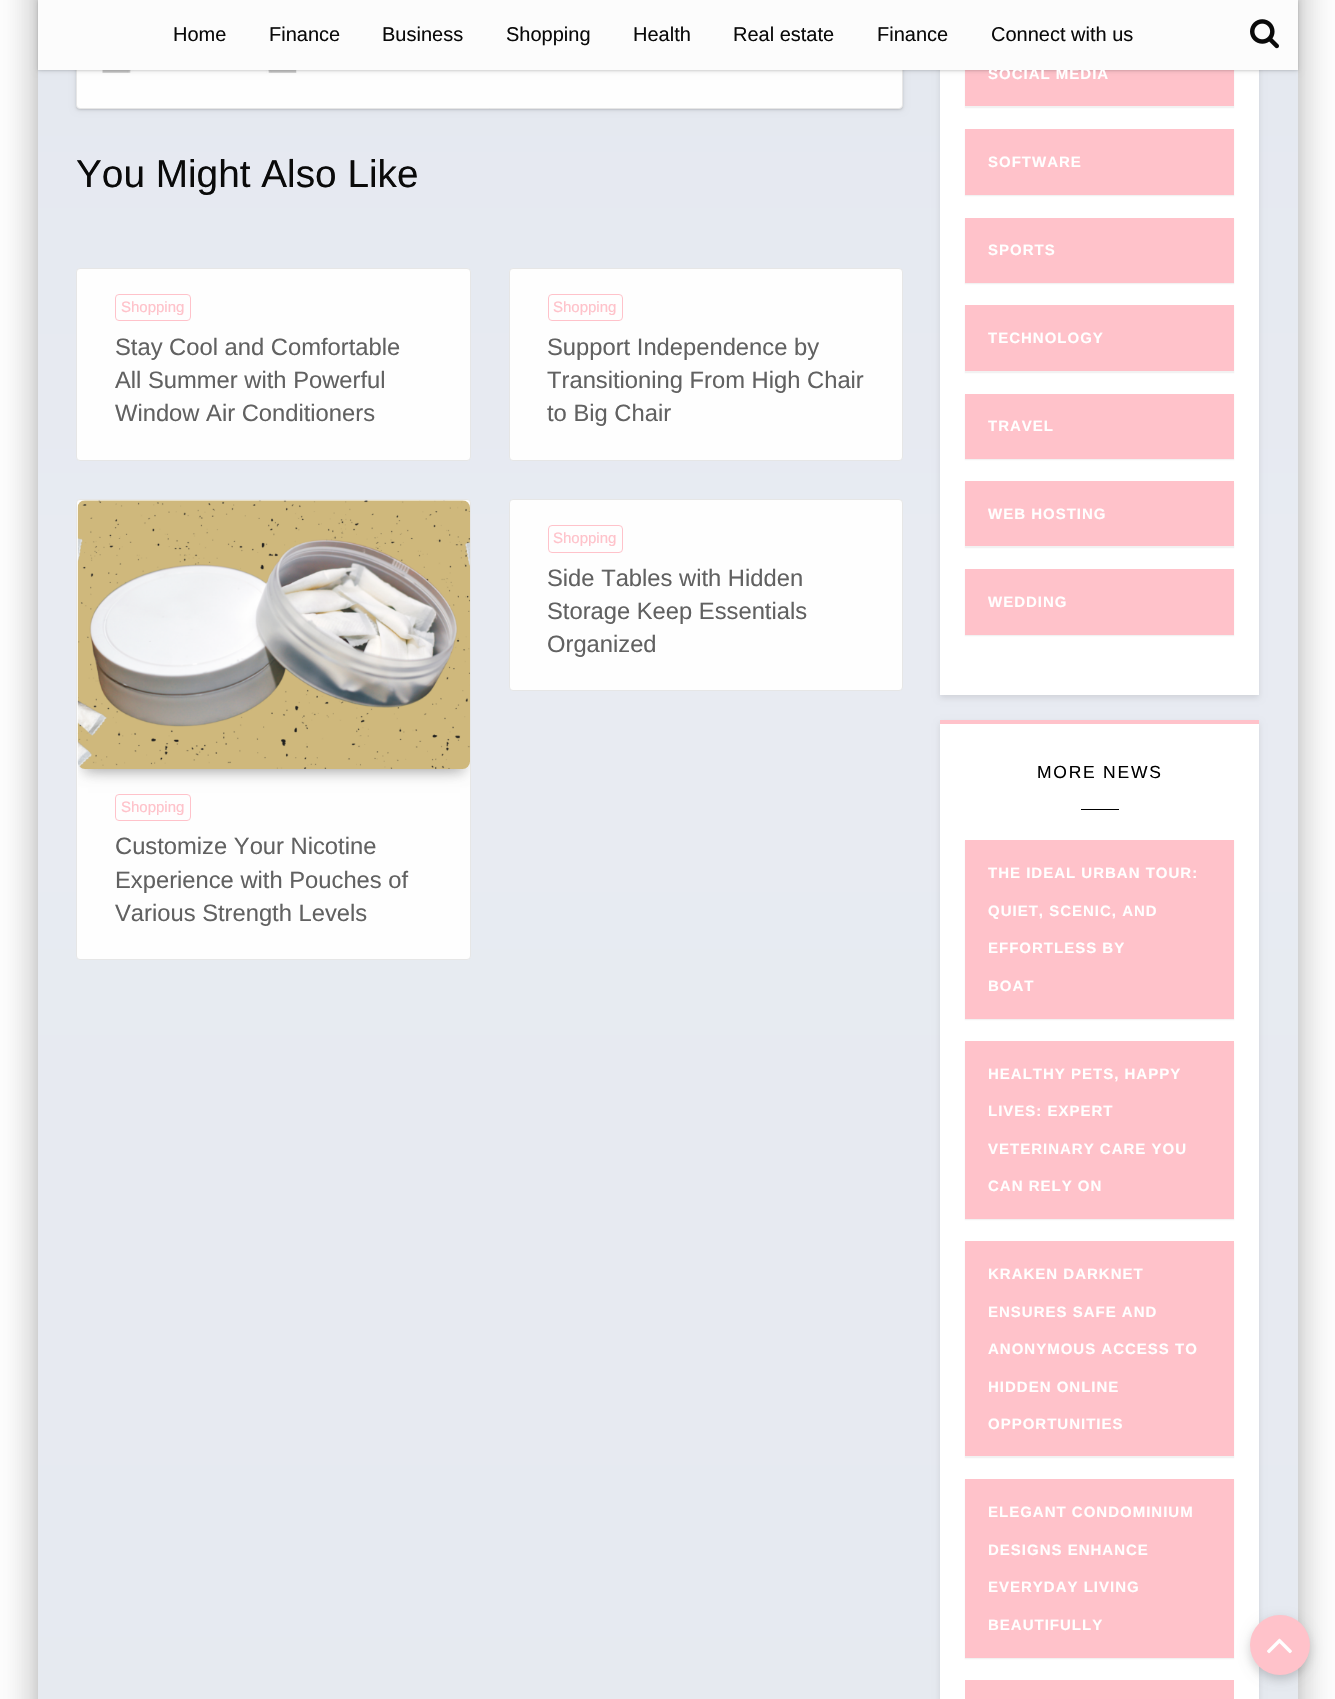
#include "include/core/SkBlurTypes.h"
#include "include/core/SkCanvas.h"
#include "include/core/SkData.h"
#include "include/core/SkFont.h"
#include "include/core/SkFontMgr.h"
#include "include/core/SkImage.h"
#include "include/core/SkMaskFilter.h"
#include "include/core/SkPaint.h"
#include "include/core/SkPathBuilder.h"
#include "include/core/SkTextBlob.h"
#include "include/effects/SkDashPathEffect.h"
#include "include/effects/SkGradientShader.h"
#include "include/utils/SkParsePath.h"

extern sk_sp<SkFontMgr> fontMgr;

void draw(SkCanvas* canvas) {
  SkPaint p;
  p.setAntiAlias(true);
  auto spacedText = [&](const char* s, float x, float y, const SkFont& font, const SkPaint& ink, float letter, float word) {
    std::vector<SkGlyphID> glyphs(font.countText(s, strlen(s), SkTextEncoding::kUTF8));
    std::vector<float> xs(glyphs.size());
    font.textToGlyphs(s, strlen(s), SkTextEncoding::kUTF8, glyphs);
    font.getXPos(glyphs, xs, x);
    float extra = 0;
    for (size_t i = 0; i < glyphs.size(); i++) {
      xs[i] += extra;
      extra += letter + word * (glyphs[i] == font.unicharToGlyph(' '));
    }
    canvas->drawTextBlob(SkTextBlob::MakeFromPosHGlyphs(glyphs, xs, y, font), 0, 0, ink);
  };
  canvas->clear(SK_ColorWHITE);
  p.setColor(SkColorSetARGB(51, 0, 0, 0));
  p.setMaskFilter(SkMaskFilter::MakeBlur(kNormal_SkBlurStyle, 6));
  canvas->drawRoundRect(SkRect::MakeLTRB(44, -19, 1291, 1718), 1, 1, p);
  p.setMaskFilter(nullptr);
  p.setColor(SkColorSetARGB(31, 0, 0, 0));
  p.setMaskFilter(SkMaskFilter::MakeBlur(kNormal_SkBlurStyle, 19));
  canvas->drawRoundRect(SkRect::MakeLTRB(31, -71, 1304, 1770), 14, 14, p);
  p.setMaskFilter(nullptr);
  p.setColor(SkColorSetARGB(36, 0, 0, 0));
  p.setMaskFilter(SkMaskFilter::MakeBlur(kNormal_SkBlurStyle, 15));
  canvas->drawRoundRect(SkRect::MakeLTRB(35, -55, 1300, 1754), 10, 10, p);
  p.setMaskFilter(nullptr);
  {
    const SkColor colors[] = {SkColorSetRGB(213, 222, 231), SkColorSetRGB(232, 235, 242), SkColorSetRGB(226, 231, 237)};
    const float stops[] = {0, 0.5f, 1};
    const SkPoint ends[] = {{667, -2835}, {668, 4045}};
    p.setShader(SkGradientShader::MakeLinear(ends, colors, stops, 3, SkTileMode::kClamp));
    p.setAlpha(255);
  }
  canvas->drawRect(SkRect::MakeLTRB(38, 70, 1298, 1699), p);
  p.setShader(nullptr);
  p.setColor(SkColorSetARGB(20, 0, 0, 0));
  p.setMaskFilter(SkMaskFilter::MakeBlur(kNormal_SkBlurStyle, 3));
  canvas->drawRoundRect(SkRect::MakeLTRB(76, -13, 903, 110), 4, 4, p);
  p.setMaskFilter(nullptr);
  p.setColor(SkColorSetARGB(33, 0, 0, 0));
  p.setMaskFilter(SkMaskFilter::MakeBlur(kNormal_SkBlurStyle, 1));
  canvas->drawRoundRect(SkRect::MakeLTRB(76, -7, 903, 110), 4, 4, p);
  p.setMaskFilter(nullptr);
  p.setColor(SkColorSetRGB(254, 254, 254));
  canvas->drawRoundRect(SkRect::MakeLTRB(76.5f, -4.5f, 902.5f, 108.5f), 3.5f, 3.5f, p);
  p.setStyle(SkPaint::kStroke_Style);
  p.setStrokeWidth(1);
  p.setColor(SkColorSetRGB(230, 230, 230));
  canvas->drawRoundRect(SkRect::MakeLTRB(76.5f, -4.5f, 902.5f, 108.5f), 3.5f, 3.5f, p);
  canvas->drawImageRect(SkImages::DeferredFromEncodedData(SkData::MakeFromFileName("images/2.png")), SkRect::MakeLTRB(102, 70, 297, 73), SkSamplingOptions());
  p.setStyle(SkPaint::kFill_Style);
  p.setColor(SkColorSetARGB(26, 0, 0, 0));
  p.setMaskFilter(SkMaskFilter::MakeBlur(kNormal_SkBlurStyle, 3));
  canvas->drawRect(SkRect::MakeLTRB(940, -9, 1259, 698), p);
  p.setMaskFilter(nullptr);
  p.setColor(SK_ColorWHITE);
  canvas->drawRect(SkRect::MakeLTRB(940, 70, 1259, 695), p);
  p.setColor(SkColorSetARGB(13, 0, 0, 0));
  p.setMaskFilter(SkMaskFilter::MakeBlur(kNormal_SkBlurStyle, 0.5f));
  canvas->drawRect(SkRect::MakeLTRB(965, 43, 1234, 108), p);
  p.setMaskFilter(nullptr);
  p.setColor(SkColorSetRGB(255, 194, 202));
  canvas->drawRect(SkRect::MakeLTRB(965, 70, 1234, 106), p);
  p.setColor(SkColorSetARGB(20, 0, 0, 0));
  p.setMaskFilter(SkMaskFilter::MakeBlur(kNormal_SkBlurStyle, 3));
  canvas->drawRect(SkRect::MakeLTRB(38, 1, 1298, 71), p);
  p.setMaskFilter(nullptr);
  p.setColor(SkColorSetARGB(33, 0, 0, 0));
  p.setMaskFilter(SkMaskFilter::MakeBlur(kNormal_SkBlurStyle, 1));
  canvas->drawRect(SkRect::MakeLTRB(38, 1, 1298, 71), p);
  p.setMaskFilter(nullptr);
  p.setColor(SkColorSetRGB(254, 254, 254));
  canvas->drawRoundRect(SkRect::MakeLTRB(76.5f, 268.5f, 470.5f, 460.5f), 3.5f, 3.5f, p);
  p.setStyle(SkPaint::kStroke_Style);
  p.setColor(SkColorSetRGB(230, 230, 230));
  canvas->drawRoundRect(SkRect::MakeLTRB(76.5f, 268.5f, 470.5f, 460.5f), 3.5f, 3.5f, p);
  p.setColor(SkColorSetRGB(255, 194, 202));
  canvas->drawRoundRect(SkRect::MakeLTRB(115.5f, 294.5f, 190.5f, 320.5f), 3.5f, 3.5f, p);
  p.setStyle(SkPaint::kFill_Style);
  p.setColor(SkColorSetRGB(254, 254, 254));
  canvas->drawRoundRect(SkRect::MakeLTRB(509.5f, 268.5f, 902.5f, 460.5f), 3.5f, 3.5f, p);
  p.setStyle(SkPaint::kStroke_Style);
  p.setColor(SkColorSetRGB(230, 230, 230));
  canvas->drawRoundRect(SkRect::MakeLTRB(509.5f, 268.5f, 902.5f, 460.5f), 3.5f, 3.5f, p);
  p.setColor(SkColorSetRGB(255, 194, 202));
  canvas->drawRoundRect(SkRect::MakeLTRB(548.5f, 294.5f, 622.5f, 320.5f), 3.5f, 3.5f, p);
  p.setStyle(SkPaint::kFill_Style);
  p.setColor(SkColorSetRGB(254, 254, 254));
  canvas->drawRoundRect(SkRect::MakeLTRB(509.5f, 499.5f, 902.5f, 690.5f), 3.5f, 3.5f, p);
  p.setStyle(SkPaint::kStroke_Style);
  p.setColor(SkColorSetRGB(230, 230, 230));
  canvas->drawRoundRect(SkRect::MakeLTRB(509.5f, 499.5f, 902.5f, 690.5f), 3.5f, 3.5f, p);
  p.setColor(SkColorSetRGB(255, 194, 202));
  canvas->drawRoundRect(SkRect::MakeLTRB(548.5f, 525.5f, 622.5f, 552.5f), 3.5f, 3.5f, p);
  p.setStyle(SkPaint::kFill_Style);
  p.setColor(SkColorSetRGB(254, 254, 254));
  canvas->drawRoundRect(SkRect::MakeLTRB(76.5f, 499.5f, 470.5f, 959.5f), 3.5f, 3.5f, p);
  p.setStyle(SkPaint::kStroke_Style);
  p.setColor(SkColorSetRGB(230, 230, 230));
  canvas->drawRoundRect(SkRect::MakeLTRB(76.5f, 499.5f, 470.5f, 959.5f), 3.5f, 3.5f, p);
  canvas->save();
  canvas->clipPath(SkPathBuilder().moveTo(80.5f, 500).lineTo(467.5f, 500).cubicTo(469, 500, 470, 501, 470, 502.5f).lineTo(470, 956.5f).cubicTo(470, 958, 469, 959, 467.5f, 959).lineTo(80.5f, 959).cubicTo(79, 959, 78, 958, 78, 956.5f).lineTo(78, 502.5f).cubicTo(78, 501, 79, 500, 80.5f, 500).close().detach(), true);
  p.setStyle(SkPaint::kFill_Style);
  p.setColor(SkColorSetARGB(51, 0, 0, 0));
  p.setMaskFilter(SkMaskFilter::MakeBlur(kNormal_SkBlurStyle, 6));
  canvas->drawRoundRect(SkRect::MakeLTRB(84, 516, 464, 773), 1, 1, p);
  p.setMaskFilter(nullptr);
  canvas->restore();
  p.setStyle(SkPaint::kStroke_Style);
  p.setColor(SkColorSetRGB(255, 194, 202));
  canvas->drawRoundRect(SkRect::MakeLTRB(115.5f, 794.5f, 190.5f, 820.5f), 3.5f, 3.5f, p);
  canvas->save();
  canvas->clipPath(SkPathBuilder().moveTo(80.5f, 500).lineTo(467.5f, 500).cubicTo(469, 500, 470, 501, 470, 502.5f).lineTo(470, 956.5f).cubicTo(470, 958, 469, 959, 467.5f, 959).lineTo(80.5f, 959).cubicTo(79, 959, 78, 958, 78, 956.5f).lineTo(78, 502.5f).cubicTo(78, 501, 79, 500, 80.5f, 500).close().detach(), true);
  p.setStyle(SkPaint::kFill_Style);
  p.setColor(SkColorSetARGB(61, 0, 0, 0));
  p.setMaskFilter(SkMaskFilter::MakeBlur(kNormal_SkBlurStyle, 9.5f));
  canvas->drawRect(SkRect::MakeLTRB(88, 516, 460, 765), p);
  p.setMaskFilter(nullptr);
  canvas->restore();
  canvas->drawImageRect(SkImages::DeferredFromEncodedData(SkData::MakeFromFileName("images/3.png")), SkRect::MakeLTRB(77, 500, 470, 769), SkSamplingOptions());
  p.setColor(SkColorSetARGB(13, 0, 0, 0));
  p.setMaskFilter(SkMaskFilter::MakeBlur(kNormal_SkBlurStyle, 0.5f));
  canvas->drawRect(SkRect::MakeLTRB(965, 130, 1234, 196), p);
  p.setMaskFilter(nullptr);
  p.setColor(SkColorSetRGB(255, 194, 202));
  canvas->drawRect(SkRect::MakeLTRB(965, 129, 1234, 195), p);
  p.setColor(SkColorSetARGB(13, 0, 0, 0));
  p.setMaskFilter(SkMaskFilter::MakeBlur(kNormal_SkBlurStyle, 0.5f));
  canvas->drawRect(SkRect::MakeLTRB(965, 219, 1234, 284), p);
  p.setMaskFilter(nullptr);
  p.setColor(SkColorSetRGB(255, 194, 202));
  canvas->drawRect(SkRect::MakeLTRB(965, 218, 1234, 283), p);
  p.setColor(SkColorSetARGB(13, 0, 0, 0));
  p.setMaskFilter(SkMaskFilter::MakeBlur(kNormal_SkBlurStyle, 0.5f));
  canvas->drawRect(SkRect::MakeLTRB(965, 306, 1234, 373), p);
  p.setMaskFilter(nullptr);
  p.setColor(SkColorSetRGB(255, 194, 202));
  canvas->drawRect(SkRect::MakeLTRB(965, 305, 1234, 371), p);
  p.setColor(SkColorSetARGB(13, 0, 0, 0));
  p.setMaskFilter(SkMaskFilter::MakeBlur(kNormal_SkBlurStyle, 0.5f));
  canvas->drawRect(SkRect::MakeLTRB(965, 395, 1234, 460), p);
  p.setMaskFilter(nullptr);
  p.setColor(SkColorSetRGB(255, 194, 202));
  canvas->drawRect(SkRect::MakeLTRB(965, 394, 1234, 459), p);
  p.setColor(SkColorSetARGB(13, 0, 0, 0));
  p.setMaskFilter(SkMaskFilter::MakeBlur(kNormal_SkBlurStyle, 0.5f));
  canvas->drawRect(SkRect::MakeLTRB(965, 483, 1234, 548), p);
  p.setMaskFilter(nullptr);
  p.setColor(SkColorSetRGB(255, 194, 202));
  canvas->drawRect(SkRect::MakeLTRB(965, 481, 1234, 546), p);
  p.setColor(SkColorSetARGB(13, 0, 0, 0));
  p.setMaskFilter(SkMaskFilter::MakeBlur(kNormal_SkBlurStyle, 0.5f));
  canvas->drawRect(SkRect::MakeLTRB(965, 570, 1234, 636), p);
  p.setMaskFilter(nullptr);
  p.setColor(SkColorSetRGB(255, 194, 202));
  canvas->drawRect(SkRect::MakeLTRB(965, 569, 1234, 635), p);
  p.setColor(SkColorSetARGB(26, 0, 0, 0));
  p.setMaskFilter(SkMaskFilter::MakeBlur(kNormal_SkBlurStyle, 3));
  canvas->drawRect(SkRect::MakeLTRB(940, 723, 1259, 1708), p);
  p.setMaskFilter(nullptr);
  p.setColor(SK_ColorWHITE);
  canvas->drawRect(SkRect::MakeLTRB(940, 724, 1259, 1699), p);
  p.setColor(SkColorSetRGB(255, 194, 202));
  canvas->drawRect(SkRect::MakeLTRB(940, 720, 1259, 724), p);
  p.setColor(SK_ColorBLACK);
  canvas->drawRect(SkRect::MakeLTRB(1081, 809, 1119, 810), p);
  p.setColor(SkColorSetARGB(13, 0, 0, 0));
  p.setMaskFilter(SkMaskFilter::MakeBlur(kNormal_SkBlurStyle, 0.5f));
  canvas->drawRect(SkRect::MakeLTRB(965, 841, 1234, 1020), p);
  p.setMaskFilter(nullptr);
  p.setColor(SkColorSetRGB(255, 194, 202));
  canvas->drawRect(SkRect::MakeLTRB(965, 840, 1234, 1019), p);
  p.setColor(SkColorSetARGB(13, 0, 0, 0));
  p.setMaskFilter(SkMaskFilter::MakeBlur(kNormal_SkBlurStyle, 0.5f));
  canvas->drawRect(SkRect::MakeLTRB(965, 1043, 1234, 1220), p);
  p.setMaskFilter(nullptr);
  p.setColor(SkColorSetRGB(255, 194, 202));
  canvas->drawRect(SkRect::MakeLTRB(965, 1041, 1234, 1219), p);
  p.setColor(SkColorSetARGB(13, 0, 0, 0));
  p.setMaskFilter(SkMaskFilter::MakeBlur(kNormal_SkBlurStyle, 0.5f));
  canvas->drawRect(SkRect::MakeLTRB(965, 1243, 1234, 1458), p);
  p.setMaskFilter(nullptr);
  p.setColor(SkColorSetRGB(255, 194, 202));
  canvas->drawRect(SkRect::MakeLTRB(965, 1241, 1234, 1456), p);
  p.setColor(SkColorSetARGB(13, 0, 0, 0));
  p.setMaskFilter(SkMaskFilter::MakeBlur(kNormal_SkBlurStyle, 0.5f));
  canvas->drawRect(SkRect::MakeLTRB(965, 1480, 1234, 1659), p);
  p.setMaskFilter(nullptr);
  p.setColor(SkColorSetRGB(255, 194, 202));
  canvas->drawRect(SkRect::MakeLTRB(965, 1479, 1234, 1658), p);
  canvas->drawRect(SkRect::MakeLTRB(965, 1680, 1234, 1699), p);
  p.setColor(SkColorSetARGB(23, 0, 0, 0));
  p.setMaskFilter(SkMaskFilter::MakeBlur(kNormal_SkBlurStyle, 6));
  canvas->drawRoundRect(SkRect::MakeLTRB(1250, 1619, 1310, 1679), 30, 30, p);
  p.setMaskFilter(nullptr);
  p.setColor(SkColorSetARGB(26, 0, 0, 0));
  p.setMaskFilter(SkMaskFilter::MakeBlur(kNormal_SkBlurStyle, 5));
  canvas->drawRoundRect(SkRect::MakeLTRB(1250, 1620, 1310, 1680), 30, 30, p);
  p.setMaskFilter(nullptr);
  p.setColor(SkColorSetRGB(255, 194, 202));
  canvas->drawCircle(1280, 1645, 30, p);
  canvas->drawImageRect(SkImages::DeferredFromEncodedData(SkData::MakeFromFileName("images/4.png")), SkRect::MakeLTRB(1267, 1638, 1292, 1654), SkSamplingOptions());
  SkFont font1(fontMgr->matchFamilyStyle("Liberation Sans", SkFontStyle::Normal()), 38.75f);
  font1.setSubpixel(true);
  p.setColor(SkColorSetRGB(10, 10, 10));
  canvas->drawString("You Might Also Like", 76, 187, font1, p);
  SkFont font2(fontMgr->matchFamilyStyle("Liberation Sans", SkFontStyle::Normal()), 15);
  font2.setSubpixel(true);
  p.setColor(SkColorSetRGB(255, 194, 202));
  canvas->drawString("Shopping", 121, 312, font2, p);
  SkFont font3(fontMgr->matchFamilyStyle("Liberation Sans", SkFontStyle::Normal()), 23.75f);
  font3.setSubpixel(true);
  p.setColor(SkColorSetRGB(97, 97, 97));
  canvas->drawString("Stay Cool and Comfortable", 115, 355, font3, p);
  canvas->drawString("All Summer with Powerful", 115, 388, font3, p);
  canvas->drawString("Window Air Conditioners", 115, 421, font3, p);
  p.setColor(SkColorSetRGB(255, 194, 202));
  canvas->drawString("Shopping", 553, 312, font2, p);
  p.setColor(SkColorSetRGB(97, 97, 97));
  canvas->drawString("Support Independence by", 547, 355, font3, p);
  canvas->drawString("Transitioning From High Chair", 547, 388, font3, p);
  canvas->drawString("to Big Chair", 547, 421, font3, p);
  p.setColor(SkColorSetRGB(255, 194, 202));
  canvas->drawString("Shopping", 553, 543, font2, p);
  p.setColor(SkColorSetRGB(97, 97, 97));
  canvas->drawString("Side Tables with Hidden", 547, 586, font3, p);
  canvas->drawString("Storage Keep Essentials", 547, 619, font3, p);
  canvas->drawString("Organized", 547, 652, font3, p);
  p.setColor(SkColorSetRGB(255, 194, 202));
  canvas->drawString("Shopping", 121, 812, font2, p);
  p.setColor(SkColorSetRGB(97, 97, 97));
  canvas->drawString("Customize Your Nicotine", 115, 854, font3, p);
  canvas->drawString("Experience with Pouches of", 115, 888, font3, p);
  canvas->drawString("Various Strength Levels", 115, 921, font3, p);
  SkFont font4(fontMgr->matchFamilyStyle("Liberation Sans", SkFontStyle::Bold()), 15);
  font4.setSubpixel(true);
  p.setColor(SK_ColorWHITE);
  spacedText("SOCIAL MEDIA", 988, 79, font4, p, 1, 0);
  p.setColor(SkColorSetRGB(252, 252, 252));
  canvas->drawRect(SkRect::MakeLTRB(38, 0, 1298, 70), p);
  SkFont font5(fontMgr->matchFamilyStyle("Liberation Sans", SkFontStyle::Normal()), 20);
  font5.setSubpixel(true);
  p.setColor(SkColorSetRGB(10, 10, 10));
  canvas->drawString("Connect with us", 991, 41, font5, p);
  canvas->drawString("Finance", 877, 41, font5, p);
  canvas->drawString("Real estate", 733, 41, font5, p);
  canvas->drawString("Health", 633, 41, font5, p);
  canvas->drawString("Shopping", 506, 41, font5, p);
  canvas->drawString("Business", 382, 41, font5, p);
  canvas->drawString("Finance", 269, 41, font5, p);
  canvas->drawString("Home", 173, 41, font5, p);
  canvas->drawImageRect(SkImages::DeferredFromEncodedData(SkData::MakeFromFileName("images/1.png")), SkRect::MakeLTRB(1250, 19, 1279, 49), SkSamplingOptions());
  p.setColor(SK_ColorWHITE);
  spacedText("SOFTWARE", 988, 167, font4, p, 1, 0);
  spacedText("SPORTS", 988, 255, font4, p, 1, 0);
  spacedText("TECHNOLOGY", 988, 343, font4, p, 1, 0);
  spacedText("TRAVEL", 988, 431, font4, p, 1, 0);
  spacedText("WEB HOSTING", 988, 519, font4, p, 1, 0);
  spacedText("WEDDING", 988, 607, font4, p, 1, 0);
  SkFont font6(fontMgr->matchFamilyStyle("Liberation Sans", SkFontStyle::Normal()), 17.5f);
  font6.setSubpixel(true);
  p.setColor(SK_ColorBLACK);
  spacedText("MORE NEWS", 1037, 778, font6, p, 1.75f, 0);
  p.setColor(SK_ColorWHITE);
  spacedText("THE IDEAL URBAN TOUR:", 988, 878, font4, p, 1, 0);
  spacedText("QUIET, SCENIC, AND", 988, 916, font4, p, 1, 0);
  spacedText("EFFORTLESS BY", 988, 953, font4, p, 1, 0);
  spacedText("BOAT", 988, 991, font4, p, 1, 0);
  spacedText("HEALTHY PETS, HAPPY", 988, 1079, font4, p, 1, 0);
  spacedText("LIVES: EXPERT", 988, 1116, font4, p, 1, 0);
  spacedText("VETERINARY CARE YOU", 988, 1154, font4, p, 1, 0);
  spacedText("CAN RELY ON", 988, 1191, font4, p, 1, 0);
  spacedText("KRAKEN DARKNET", 988, 1279, font4, p, 1, 0);
  spacedText("ENSURES SAFE AND", 988, 1317, font4, p, 1, 0);
  spacedText("ANONYMOUS ACCESS TO", 988, 1354, font4, p, 1, 0);
  spacedText("HIDDEN ONLINE", 988, 1392, font4, p, 1, 0);
  spacedText("OPPORTUNITIES", 988, 1429, font4, p, 1, 0);
  spacedText("ELEGANT CONDOMINIUM", 988, 1517, font4, p, 1, 0);
  spacedText("DESIGNS ENHANCE", 988, 1555, font4, p, 1, 0);
  spacedText("EVERYDAY LIVING", 988, 1592, font4, p, 1, 0);
  spacedText("BEAUTIFULLY", 988, 1630, font4, p, 1, 0);
}
